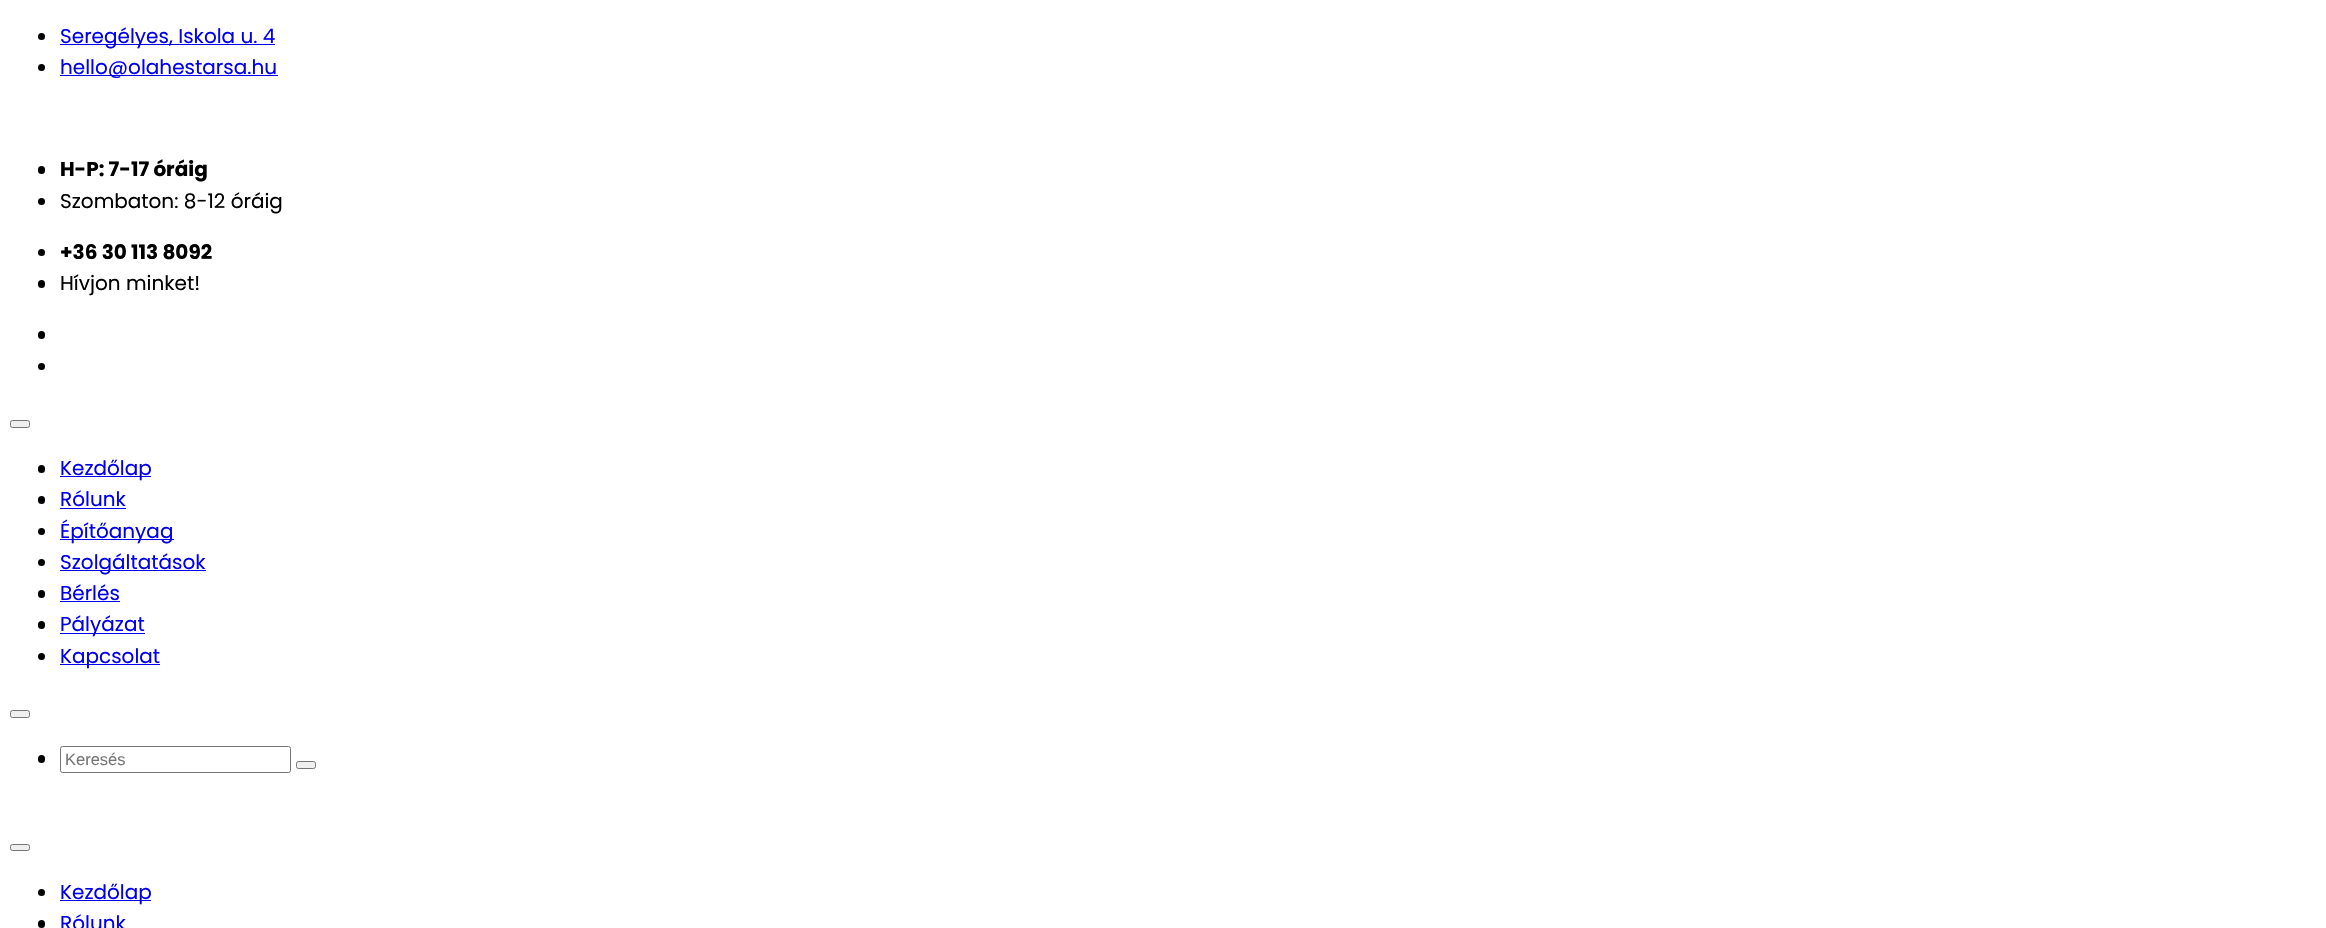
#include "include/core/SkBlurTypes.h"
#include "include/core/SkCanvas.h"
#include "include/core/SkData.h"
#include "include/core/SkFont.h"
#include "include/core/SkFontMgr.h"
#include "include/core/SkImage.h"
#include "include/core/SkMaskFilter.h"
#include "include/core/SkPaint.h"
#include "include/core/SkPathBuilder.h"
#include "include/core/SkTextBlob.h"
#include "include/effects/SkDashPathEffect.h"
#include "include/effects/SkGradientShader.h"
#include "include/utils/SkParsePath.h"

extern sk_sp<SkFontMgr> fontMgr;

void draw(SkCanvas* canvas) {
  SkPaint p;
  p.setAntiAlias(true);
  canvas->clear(SK_ColorWHITE);
  p.setColor(SK_ColorBLACK);
  canvas->drawCircle(41.5f, 36.5f, 3.5f, p);
  p.setColor(SkColorSetRGB(0, 0, 238));
  canvas->drawRect(SkRect::MakeLTRB(60, 44, 275, 45), p);
  p.setColor(SK_ColorBLACK);
  canvas->drawCircle(41.5f, 67.5f, 3.5f, p);
  p.setColor(SkColorSetRGB(0, 0, 238));
  canvas->drawRect(SkRect::MakeLTRB(60, 75, 278, 76), p);
  p.setColor(SK_ColorBLACK);
  canvas->drawRoundRect(SkRect::MakeLTRB(38, 166, 45, 174), 3.5f, 3.5f, p);
  canvas->drawCircle(41.5f, 201.5f, 3.5f, p);
  canvas->drawCircle(41.5f, 252.5f, 3.5f, p);
  canvas->drawRoundRect(SkRect::MakeLTRB(38, 280, 45, 288), 3.5f, 3.5f, p);
  canvas->drawRoundRect(SkRect::MakeLTRB(38, 331, 45, 339), 3.5f, 3.5f, p);
  canvas->drawCircle(41.5f, 366.5f, 3.5f, p);
  p.setColor(SkColorSetRGB(239, 239, 239));
  canvas->drawRoundRect(SkRect::MakeLTRB(10.5f, 420.5f, 29.5f, 427.5f), 2, 2, p);
  p.setStyle(SkPaint::kStroke_Style);
  p.setStrokeWidth(1);
  p.setColor(SkColorSetRGB(118, 118, 118));
  canvas->drawRoundRect(SkRect::MakeLTRB(10.5f, 420.5f, 29.5f, 427.5f), 2, 2, p);
  p.setStyle(SkPaint::kFill_Style);
  p.setColor(SK_ColorBLACK);
  canvas->drawRoundRect(SkRect::MakeLTRB(38, 465, 45, 473), 3.5f, 3.5f, p);
  p.setColor(SkColorSetRGB(0, 0, 238));
  canvas->drawRect(SkRect::MakeLTRB(60, 476, 151, 477), p);
  p.setColor(SK_ColorBLACK);
  canvas->drawRoundRect(SkRect::MakeLTRB(38, 496, 45, 504), 3.5f, 3.5f, p);
  p.setColor(SkColorSetRGB(0, 0, 238));
  canvas->drawRect(SkRect::MakeLTRB(60, 508, 126, 509), p);
  p.setColor(SK_ColorBLACK);
  canvas->drawCircle(41.5f, 531.5f, 3.5f, p);
  p.setColor(SkColorSetRGB(0, 0, 238));
  canvas->drawRect(SkRect::MakeLTRB(60, 539, 174, 540), p);
  p.setColor(SK_ColorBLACK);
  canvas->drawCircle(41.5f, 562.5f, 3.5f, p);
  p.setColor(SkColorSetRGB(0, 0, 238));
  canvas->drawRect(SkRect::MakeLTRB(60, 570, 206, 571), p);
  p.setColor(SK_ColorBLACK);
  canvas->drawRoundRect(SkRect::MakeLTRB(38, 590, 45, 598), 3.5f, 3.5f, p);
  p.setColor(SkColorSetRGB(0, 0, 238));
  canvas->drawRect(SkRect::MakeLTRB(60, 601, 120, 602), p);
  p.setColor(SK_ColorBLACK);
  canvas->drawRoundRect(SkRect::MakeLTRB(38, 621, 45, 629), 3.5f, 3.5f, p);
  p.setColor(SkColorSetRGB(0, 0, 238));
  canvas->drawRect(SkRect::MakeLTRB(60, 633, 145, 634), p);
  p.setColor(SK_ColorBLACK);
  canvas->drawCircle(41.5f, 656.5f, 3.5f, p);
  p.setColor(SkColorSetRGB(0, 0, 238));
  canvas->drawRect(SkRect::MakeLTRB(60, 664, 160, 665), p);
  p.setColor(SkColorSetRGB(239, 239, 239));
  canvas->drawRoundRect(SkRect::MakeLTRB(10.5f, 710.5f, 29.5f, 717.5f), 2, 2, p);
  p.setStyle(SkPaint::kStroke_Style);
  p.setColor(SkColorSetRGB(118, 118, 118));
  canvas->drawRoundRect(SkRect::MakeLTRB(10.5f, 710.5f, 29.5f, 717.5f), 2, 2, p);
  p.setStyle(SkPaint::kFill_Style);
  p.setColor(SK_ColorBLACK);
  canvas->drawRoundRect(SkRect::MakeLTRB(38, 755, 45, 763), 3.5f, 3.5f, p);
  p.setStyle(SkPaint::kStroke_Style);
  p.setColor(SkColorSetRGB(118, 118, 118));
  canvas->drawRoundRect(SkRect::MakeLTRB(60.5f, 746.5f, 290.5f, 772.5f), 2, 2, p);
  p.setStyle(SkPaint::kFill_Style);
  p.setColor(SkColorSetRGB(239, 239, 239));
  canvas->drawRoundRect(SkRect::MakeLTRB(296.5f, 761.5f, 315.5f, 768.5f), 2, 2, p);
  p.setStyle(SkPaint::kStroke_Style);
  p.setColor(SkColorSetRGB(118, 118, 118));
  canvas->drawRoundRect(SkRect::MakeLTRB(296.5f, 761.5f, 315.5f, 768.5f), 2, 2, p);
  p.setStyle(SkPaint::kFill_Style);
  p.setColor(SkColorSetRGB(239, 239, 239));
  canvas->drawRoundRect(SkRect::MakeLTRB(10.5f, 844.5f, 29.5f, 850.5f), 2, 2, p);
  p.setStyle(SkPaint::kStroke_Style);
  p.setColor(SkColorSetRGB(118, 118, 118));
  canvas->drawRoundRect(SkRect::MakeLTRB(10.5f, 844.5f, 29.5f, 850.5f), 2, 2, p);
  p.setStyle(SkPaint::kFill_Style);
  p.setColor(SK_ColorBLACK);
  canvas->drawCircle(41.5f, 892.5f, 3.5f, p);
  p.setColor(SkColorSetRGB(0, 0, 238));
  canvas->drawRect(SkRect::MakeLTRB(60, 900, 151, 901), p);
  p.setColor(SK_ColorBLACK);
  canvas->drawRoundRect(SkRect::MakeLTRB(38, 920, 45, 928), 3.5f, 3.5f, p);
  SkFont font1(fontMgr->matchFamilyStyle("Poppins", SkFontStyle::Normal()), 20);
  font1.setSubpixel(true);
  p.setColor(SkColorSetRGB(0, 0, 238));
  canvas->drawString("Seregélyes, Iskola u. 4", 60, 43, font1, p);
  canvas->drawString("hello@olahestarsa.hu", 60, 74, font1, p);
  SkFont font2(fontMgr->matchFamilyStyle("Poppins", SkFontStyle::Bold()), 20);
  font2.setSubpixel(true);
  p.setColor(SK_ColorBLACK);
  canvas->drawString("H-P: 7-17 óráig", 60, 176, font2, p);
  canvas->drawString("Szombaton: 8-12 óráig", 60, 208, font1, p);
  canvas->drawString("+36 30 113 8092", 60, 259, font2, p);
  canvas->drawString("Hívjon minket!", 60, 290, font1, p);
  p.setColor(SkColorSetRGB(0, 0, 238));
  canvas->drawString("Kezdőlap", 60, 475, font1, p);
  canvas->drawString("Rólunk", 60, 506, font1, p);
  canvas->drawString("Építőanyag", 60, 538, font1, p);
  canvas->drawString("Szolgáltatások", 60, 569, font1, p);
  canvas->drawString("Bérlés", 60, 600, font1, p);
  canvas->drawString("Pályázat", 60, 631, font1, p);
  canvas->drawString("Kapcsolat", 60, 663, font1, p);
  SkFont font3(fontMgr->matchFamilyStyle("Liberation Sans", SkFontStyle::Normal()), 16.5f);
  font3.setSubpixel(true);
  p.setColor(SkColorSetRGB(117, 117, 117));
  canvas->drawString("Keresés", 65, 765, font3, p);
  p.setColor(SkColorSetRGB(0, 0, 238));
  canvas->drawString("Kezdőlap", 60, 899, font1, p);
  canvas->drawString("Rólunk", 60, 930, font1, p);
}
